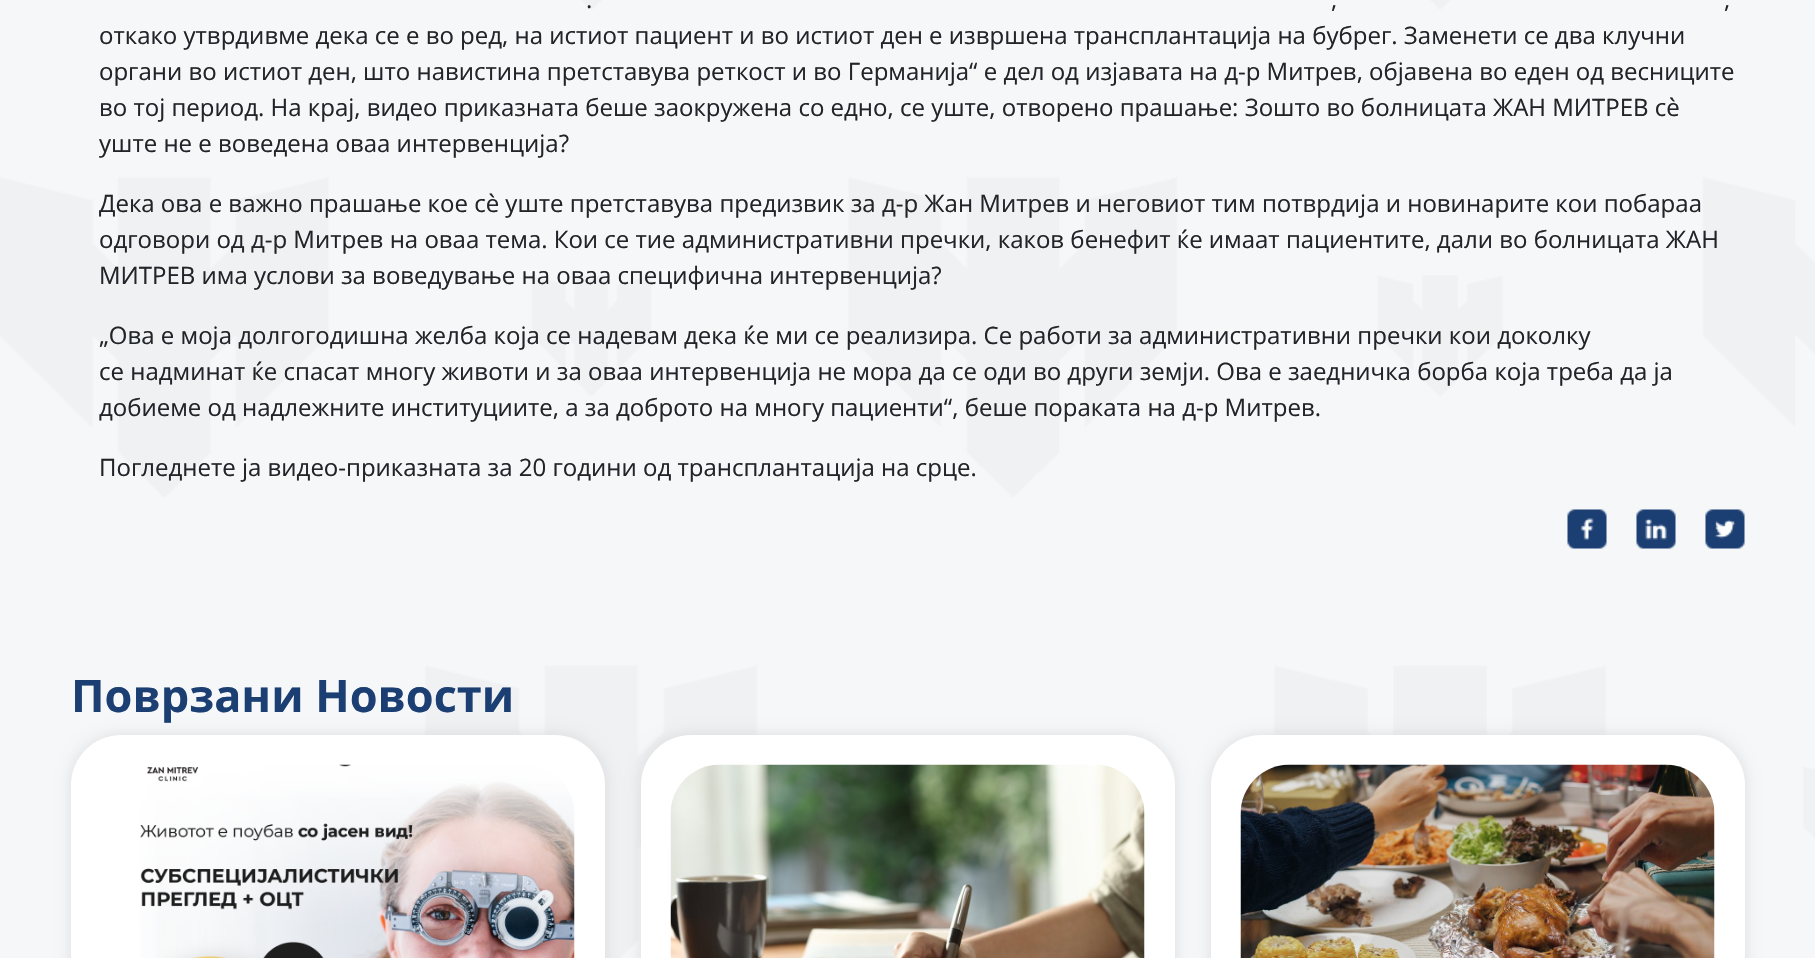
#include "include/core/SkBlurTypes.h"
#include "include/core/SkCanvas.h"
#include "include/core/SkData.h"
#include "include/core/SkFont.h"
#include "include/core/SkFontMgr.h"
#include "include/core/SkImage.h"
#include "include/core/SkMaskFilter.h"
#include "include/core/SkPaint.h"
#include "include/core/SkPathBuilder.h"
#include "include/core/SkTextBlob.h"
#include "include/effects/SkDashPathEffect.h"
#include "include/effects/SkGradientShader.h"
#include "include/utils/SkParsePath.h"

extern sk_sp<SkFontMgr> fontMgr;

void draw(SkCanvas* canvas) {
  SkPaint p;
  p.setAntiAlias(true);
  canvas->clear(SkColorSetRGB(246, 247, 249));
  canvas->drawImageRect(SkImages::DeferredFromEncodedData(SkData::MakeFromFileName("images/1.png")), SkRect::MakeLTRB(0, 0, 1815, 958), SkSamplingOptions());
  canvas->drawImageRect(SkImages::DeferredFromEncodedData(SkData::MakeFromFileName("images/2.png")), SkRect::MakeLTRB(1567, 509, 1607, 549), SkSamplingOptions());
  canvas->drawImageRect(SkImages::DeferredFromEncodedData(SkData::MakeFromFileName("images/3.png")), SkRect::MakeLTRB(1636, 509, 1676, 549), SkSamplingOptions());
  canvas->drawImageRect(SkImages::DeferredFromEncodedData(SkData::MakeFromFileName("images/4.png")), SkRect::MakeLTRB(1705, 509, 1745, 549), SkSamplingOptions());
  p.setColor(SkColorSetARGB(26, 0, 0, 0));
  p.setMaskFilter(SkMaskFilter::MakeBlur(kNormal_SkBlurStyle, 7.5f));
  canvas->drawRoundRect(SkRect::MakeLTRB(71, 735, 605, 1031), 50, 50, p);
  p.setMaskFilter(nullptr);
  p.setColor(SK_ColorWHITE);
  canvas->drawRoundRect(SkRect::MakeLTRB(71, 735, 605, 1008), 50, 50, p);
  canvas->drawImageRect(SkImages::DeferredFromEncodedData(SkData::MakeFromFileName("images/5.png")), SkRect::MakeLTRB(140, 764, 575, 958), SkSamplingOptions());
  p.setColor(SkColorSetARGB(26, 0, 0, 0));
  p.setMaskFilter(SkMaskFilter::MakeBlur(kNormal_SkBlurStyle, 7.5f));
  canvas->drawRoundRect(SkRect::MakeLTRB(641, 735, 1175, 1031), 50, 50, p);
  p.setMaskFilter(nullptr);
  p.setColor(SK_ColorWHITE);
  canvas->drawRoundRect(SkRect::MakeLTRB(641, 735, 1175, 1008), 50, 50, p);
  canvas->drawImageRect(SkImages::DeferredFromEncodedData(SkData::MakeFromFileName("images/6.png")), SkRect::MakeLTRB(670, 764, 1145, 958), SkSamplingOptions());
  p.setColor(SkColorSetARGB(26, 0, 0, 0));
  p.setMaskFilter(SkMaskFilter::MakeBlur(kNormal_SkBlurStyle, 7.5f));
  canvas->drawRoundRect(SkRect::MakeLTRB(1211, 735, 1745, 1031), 50, 50, p);
  p.setMaskFilter(nullptr);
  p.setColor(SK_ColorWHITE);
  canvas->drawRoundRect(SkRect::MakeLTRB(1211, 735, 1745, 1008), 50, 50, p);
  canvas->drawImageRect(SkImages::DeferredFromEncodedData(SkData::MakeFromFileName("images/7.png")), SkRect::MakeLTRB(1240, 764, 1715, 958), SkSamplingOptions());
  SkFont font1(fontMgr->matchFamilyStyle("Open Sans", SkFontStyle::Normal()), 24);
  font1.setSubpixel(true);
  p.setColor(SkColorSetRGB(33, 37, 41));
  canvas->drawString(".", 586, 8, font1, p);
  canvas->drawString(",", 1331, 8, font1, p);
  canvas->drawString(",", 1724, 8, font1, p);
  canvas->drawString("откако утврдивме дека се е во ред, на истиот пациент и во истиот ден е извршена трансплантација на бубрег. Заменети се два клучни", 99, 44, font1, p);
  canvas->drawString("органи во истиот ден, што навистина претставува реткост и во Германија“ е дел од изјавата на д-р Митрев, објавена во еден од весниците", 99, 80, font1, p);
  canvas->drawString("во тој период. На крај, видео приказната беше заокружена со едно, се уште, отворено прашање: Зошто во болницата ЖАН МИТРЕВ сè", 99, 116, font1, p);
  canvas->drawString("уште не е воведена оваа интервенција?", 99, 152, font1, p);
  canvas->drawString("Дека ова е важно прашање кое сè уште претставува предизвик за д-р Жан Митрев и неговиот тим потврдија и новинарите кои побараа", 99, 212, font1, p);
  canvas->drawString("одговори од д-р Митрев на оваа тема. Кои се тие административни пречки, каков бенефит ќе имаат пациентите, дали во болницата ЖАН", 99, 248, font1, p);
  canvas->drawString("МИТРЕВ има услови за воведување на оваа специфична интервенција?", 99, 284, font1, p);
  canvas->drawString("„Ова е моја долгогодишна желба која се надевам дека ќе ми се реализира. Се работи за административни пречки кои доколку", 99, 344, font1, p);
  canvas->drawString("се надминат ќе спасат многу животи и за оваа интервенција не мора да се оди во други земји. Ова е заедничка борба која треба да ја", 99, 380, font1, p);
  canvas->drawString("добиеме од надлежните институциите, а за доброто на многу пациенти“, беше пораката на д-р Митрев.", 99, 416, font1, p);
  canvas->drawString("Погледнете ја видео-приказната за 20 години од трансплантација на срце.", 99, 476, font1, p);
  SkFont font2(fontMgr->matchFamilyStyle("Open Sans", SkFontStyle::Bold()), 45);
  font2.setSubpixel(true);
  p.setColor(SkColorSetRGB(27, 63, 115));
  canvas->drawString("Поврзани Новости", 71, 712, font2, p);
}
